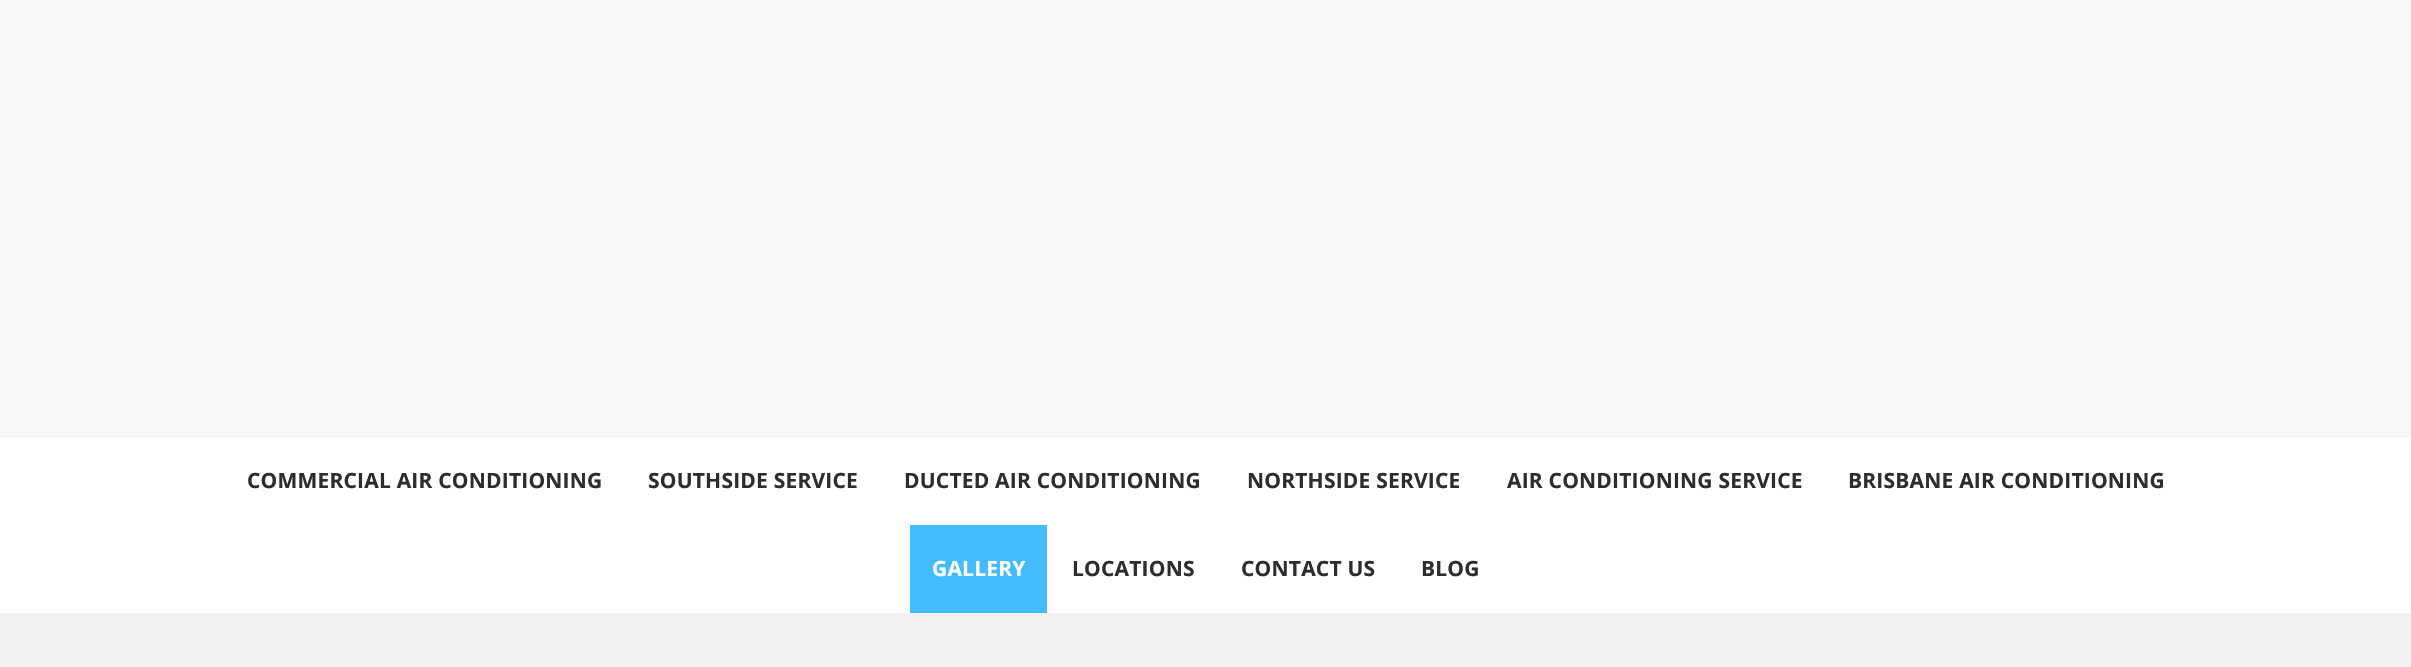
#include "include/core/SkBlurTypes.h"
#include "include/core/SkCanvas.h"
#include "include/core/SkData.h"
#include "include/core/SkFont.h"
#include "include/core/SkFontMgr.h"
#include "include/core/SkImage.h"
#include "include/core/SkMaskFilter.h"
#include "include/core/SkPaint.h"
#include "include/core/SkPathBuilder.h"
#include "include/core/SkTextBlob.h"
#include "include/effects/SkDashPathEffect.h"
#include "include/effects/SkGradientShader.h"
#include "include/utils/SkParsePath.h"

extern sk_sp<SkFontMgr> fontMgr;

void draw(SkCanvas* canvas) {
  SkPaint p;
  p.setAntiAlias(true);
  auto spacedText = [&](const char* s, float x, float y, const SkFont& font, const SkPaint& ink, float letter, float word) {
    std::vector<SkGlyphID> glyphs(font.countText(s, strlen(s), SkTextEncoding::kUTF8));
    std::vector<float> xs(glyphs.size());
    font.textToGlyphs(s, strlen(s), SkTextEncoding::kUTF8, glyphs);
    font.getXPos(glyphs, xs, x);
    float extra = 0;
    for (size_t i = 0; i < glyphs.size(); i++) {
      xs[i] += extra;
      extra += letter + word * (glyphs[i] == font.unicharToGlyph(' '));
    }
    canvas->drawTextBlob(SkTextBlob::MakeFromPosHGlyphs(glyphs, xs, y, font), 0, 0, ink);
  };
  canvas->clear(SkColorSetRGB(242, 242, 242));
  p.setColor(SkColorSetRGB(247, 247, 247));
  canvas->drawRect(SkRect::MakeLTRB(0, 0, 2411, 438), p);
  p.setColor(SK_ColorWHITE);
  canvas->drawRect(SkRect::MakeLTRB(0, 438, 2411, 613), p);
  p.setColor(SkColorSetRGB(68, 187, 255));
  canvas->drawRect(SkRect::MakeLTRB(910, 525, 1047, 613), p);
  SkFont font1(fontMgr->matchFamilyStyle("Open Sans", SkFontStyle::Bold()), 21);
  font1.setSubpixel(true);
  p.setColor(SkColorSetRGB(45, 45, 45));
  spacedText("COMMERCIAL AIR CONDITIONING", 247, 488, font1, p, 0.2f, 0);
  spacedText("SOUTHSIDE SERVICE", 648, 488, font1, p, 0.2f, 0);
  spacedText("DUCTED AIR CONDITIONING", 904, 488, font1, p, 0.2f, 0);
  spacedText("NORTHSIDE SERVICE", 1247, 488, font1, p, 0.2f, 0);
  spacedText("AIR CONDITIONING SERVICE", 1507, 488, font1, p, 0.2f, 0);
  spacedText("BRISBANE AIR CONDITIONING", 1848, 488, font1, p, 0.2f, 0);
  p.setColor(SK_ColorWHITE);
  spacedText("GALLERY", 932, 576, font1, p, 0.2f, 0);
  p.setColor(SkColorSetRGB(45, 45, 45));
  spacedText("LOCATIONS", 1072, 576, font1, p, 0.2f, 0);
  spacedText("CONTACT US", 1241, 576, font1, p, 0.2f, 0);
  spacedText("BLOG", 1421, 576, font1, p, 0.2f, 0);
}
